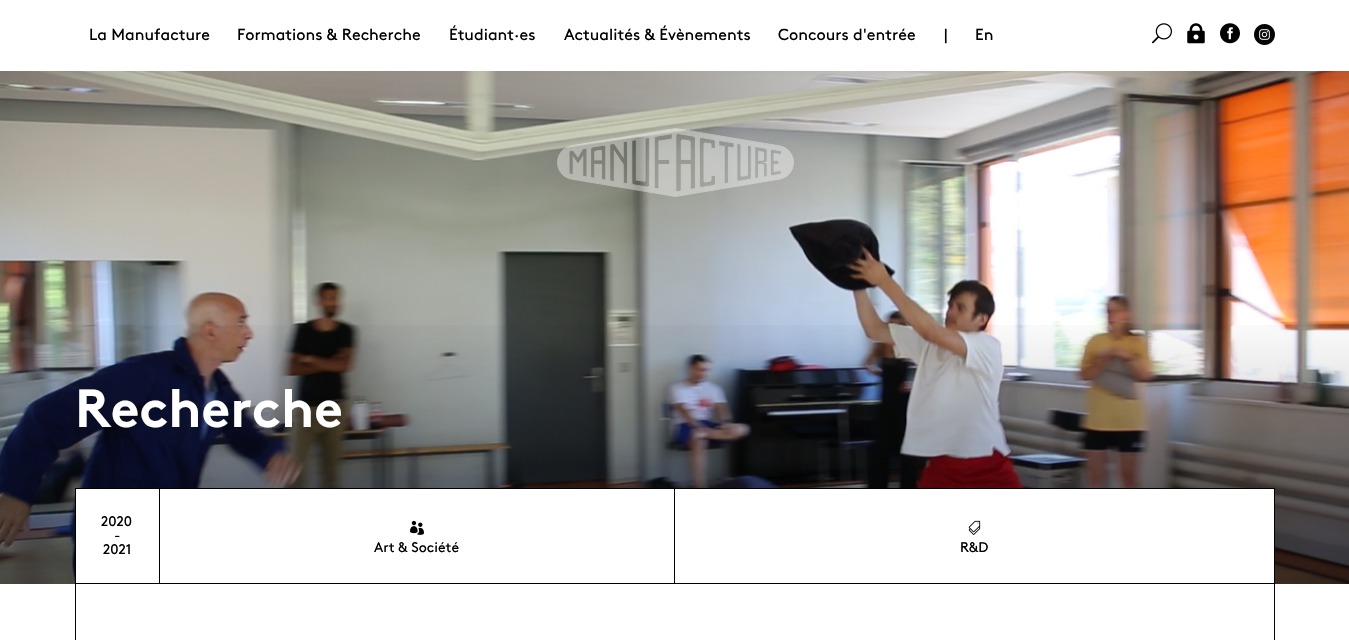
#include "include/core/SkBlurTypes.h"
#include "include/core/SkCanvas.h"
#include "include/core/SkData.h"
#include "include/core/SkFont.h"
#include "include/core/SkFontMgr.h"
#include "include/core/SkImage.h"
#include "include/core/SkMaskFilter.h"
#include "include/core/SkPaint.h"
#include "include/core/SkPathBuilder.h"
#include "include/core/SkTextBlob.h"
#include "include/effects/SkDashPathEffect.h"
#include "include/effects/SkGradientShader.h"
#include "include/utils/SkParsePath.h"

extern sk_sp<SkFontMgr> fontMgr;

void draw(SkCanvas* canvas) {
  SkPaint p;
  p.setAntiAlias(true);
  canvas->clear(SK_ColorWHITE);
  canvas->drawImageRect(SkImages::DeferredFromEncodedData(SkData::MakeFromFileName("images/1.png")), SkRect::MakeLTRB(1152, 23, 1172, 44), SkSamplingOptions());
  canvas->drawImageRect(SkImages::DeferredFromEncodedData(SkData::MakeFromFileName("images/2.png")), SkRect::MakeLTRB(1187, 23, 1205, 44), SkSamplingOptions());
  canvas->drawImageRect(SkImages::DeferredFromEncodedData(SkData::MakeFromFileName("images/3.png")), SkRect::MakeLTRB(1220, 23, 1240, 44), SkSamplingOptions());
  canvas->drawImageRect(SkImages::DeferredFromEncodedData(SkData::MakeFromFileName("images/4.png")), SkRect::MakeLTRB(1254, 24, 1275, 45), SkSamplingOptions());
  canvas->drawImageRect(SkImages::DeferredFromEncodedData(SkData::MakeFromFileName("images/5.png")), SkRect::MakeLTRB(0, 71, 1349, 584), SkSamplingOptions());
  canvas->drawImageRect(SkImages::DeferredFromEncodedData(SkData::MakeFromFileName("images/6.png")), SkRect::MakeLTRB(557, 128, 794, 197), SkSamplingOptions());
  canvas->drawImageRect(SkImages::DeferredFromEncodedData(SkData::MakeFromFileName("images/7.png")), SkRect::MakeLTRB(0, 325, 1349, 584), SkSamplingOptions());
  p.setColor(SK_ColorWHITE);
  canvas->drawRect(SkRect::MakeLTRB(76, 489, 1274, 584), p);
  p.setStyle(SkPaint::kStroke_Style);
  p.setStrokeWidth(1);
  p.setColor(SkColorSetRGB(5, 5, 5));
  canvas->drawRect(SkRect::MakeLTRB(75.5f, 488.5f, 1274.5f, 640.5f), p);
  p.setStyle(SkPaint::kFill_Style);
  p.setColor(SK_ColorBLACK);
  canvas->drawRect(SkRect::MakeLTRB(674, 488, 1275, 489), p);
  canvas->drawRect(SkRect::MakeLTRB(1274, 488, 1275, 584), p);
  canvas->drawRect(SkRect::MakeLTRB(674, 583, 1275, 584), p);
  canvas->drawRect(SkRect::MakeLTRB(674, 488, 675, 584), p);
  canvas->drawRect(SkRect::MakeLTRB(159, 488, 675, 489), p);
  canvas->drawRect(SkRect::MakeLTRB(159, 583, 675, 584), p);
  canvas->drawRect(SkRect::MakeLTRB(159, 488, 160, 584), p);
  canvas->drawRect(SkRect::MakeLTRB(75, 488, 160, 489), p);
  canvas->drawRect(SkRect::MakeLTRB(75, 583, 160, 584), p);
  canvas->drawRect(SkRect::MakeLTRB(75, 488, 76, 584), p);
  canvas->drawImageRect(SkImages::DeferredFromEncodedData(SkData::MakeFromFileName("images/8.png")), SkRect::MakeLTRB(410, 520, 424, 535), SkSamplingOptions());
  canvas->drawImageRect(SkImages::DeferredFromEncodedData(SkData::MakeFromFileName("images/9.png")), SkRect::MakeLTRB(968, 520, 981, 535), SkSamplingOptions());
  SkFont font1(fontMgr->matchFamilyStyle("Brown", SkFontStyle::Normal()), 16);
  font1.setSubpixel(true);
  canvas->drawString("La Manufacture", 89, 40, font1, p);
  canvas->drawString("Formations & Recherche", 237, 40, font1, p);
  canvas->drawString("Étudiant·es", 449, 40, font1, p);
  canvas->drawString("Actualités & Évènements", 564, 40, font1, p);
  canvas->drawString("Concours d'entrée", 778, 40, font1, p);
  canvas->drawString("|", 944, 40, font1, p);
  canvas->drawString("En", 975, 40, font1, p);
  SkFont font2(fontMgr->matchFamilyStyle("Brown", SkFontStyle::Bold()), 53.5f);
  font2.setSubpixel(true);
  p.setColor(SK_ColorWHITE);
  canvas->drawString("Recherche", 75, 427, font2, p);
  SkFont font3(fontMgr->matchFamilyStyle("Brown", SkFontStyle::Normal()), 14);
  font3.setSubpixel(true);
  p.setColor(SK_ColorBLACK);
  canvas->drawString("2020", 101, 526, font3, p);
  canvas->drawString("-", 114, 540, font3, p);
  canvas->drawString("2021", 103, 554, font3, p);
  canvas->drawString("Art & Société", 374, 552, font3, p);
  canvas->drawString("R&D", 960, 552, font3, p);
}
